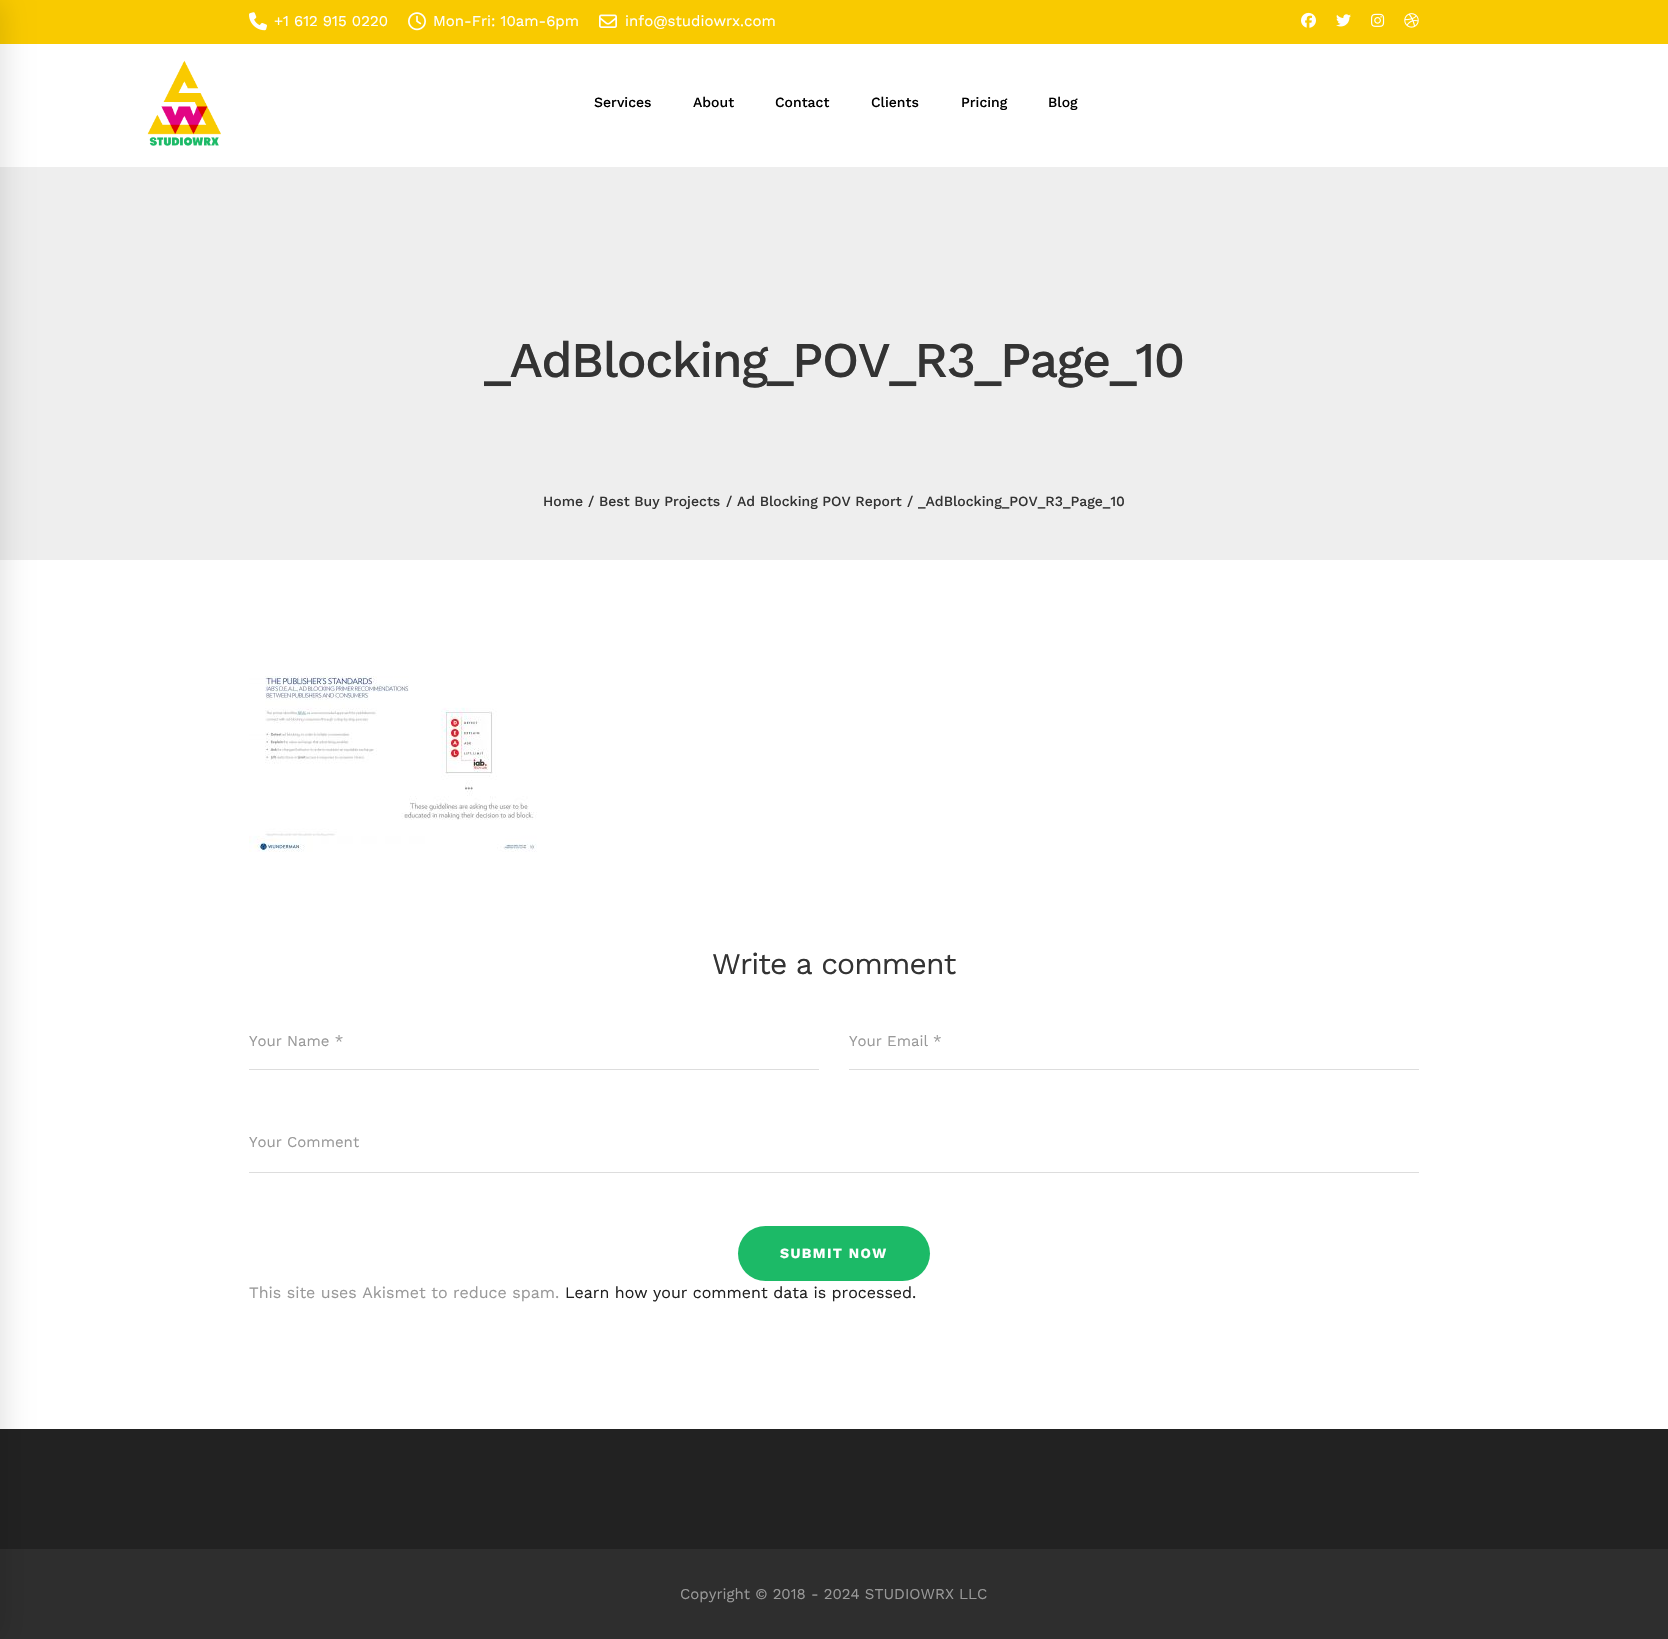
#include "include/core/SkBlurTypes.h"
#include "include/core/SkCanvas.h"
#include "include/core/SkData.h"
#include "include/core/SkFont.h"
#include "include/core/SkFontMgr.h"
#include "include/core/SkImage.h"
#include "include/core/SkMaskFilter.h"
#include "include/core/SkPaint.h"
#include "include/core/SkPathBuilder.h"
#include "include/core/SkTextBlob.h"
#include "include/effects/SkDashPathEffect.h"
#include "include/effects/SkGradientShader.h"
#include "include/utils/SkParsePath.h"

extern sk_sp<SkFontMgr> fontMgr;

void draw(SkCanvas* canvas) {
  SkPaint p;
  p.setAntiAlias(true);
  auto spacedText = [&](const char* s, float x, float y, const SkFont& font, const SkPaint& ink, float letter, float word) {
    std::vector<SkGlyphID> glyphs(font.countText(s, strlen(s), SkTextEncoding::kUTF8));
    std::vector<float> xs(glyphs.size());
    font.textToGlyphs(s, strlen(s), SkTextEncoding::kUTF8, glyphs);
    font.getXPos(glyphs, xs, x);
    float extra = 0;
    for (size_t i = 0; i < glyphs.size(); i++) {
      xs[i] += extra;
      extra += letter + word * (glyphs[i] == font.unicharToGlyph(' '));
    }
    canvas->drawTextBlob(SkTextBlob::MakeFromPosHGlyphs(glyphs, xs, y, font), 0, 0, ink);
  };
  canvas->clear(SkColorSetRGB(34, 34, 34));
  p.setColor(SK_ColorWHITE);
  canvas->drawRect(SkRect::MakeLTRB(0, 44, 1668, 1429), p);
  p.setColor(SkColorSetRGB(249, 202, 0));
  canvas->drawRect(SkRect::MakeLTRB(0, 0, 1668, 44), p);
  p.setColor(SkColorSetRGB(238, 238, 238));
  canvas->drawRect(SkRect::MakeLTRB(0, 167, 1668, 560), p);
  p.setColor(SkColorSetRGB(46, 46, 46));
  canvas->drawRect(SkRect::MakeLTRB(0, 1549, 1668, 1639), p);
  p.setColor(SkColorSetARGB(31, 0, 0, 0));
  p.setMaskFilter(SkMaskFilter::MakeBlur(kNormal_SkBlurStyle, 14.5f));
  canvas->drawRect(SkRect::MakeLTRB(-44, 1, 3, 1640), p);
  p.setMaskFilter(nullptr);
  canvas->drawImageRect(SkImages::DeferredFromEncodedData(SkData::MakeFromFileName("images/1.png")), SkRect::MakeLTRB(249, 12, 267, 31), SkSamplingOptions());
  canvas->drawImageRect(SkImages::DeferredFromEncodedData(SkData::MakeFromFileName("images/2.png")), SkRect::MakeLTRB(408, 12, 426, 31), SkSamplingOptions());
  canvas->drawImageRect(SkImages::DeferredFromEncodedData(SkData::MakeFromFileName("images/3.png")), SkRect::MakeLTRB(599, 14, 617, 28), SkSamplingOptions());
  canvas->drawImageRect(SkImages::DeferredFromEncodedData(SkData::MakeFromFileName("images/4.png")), SkRect::MakeLTRB(1301, 12, 1316, 28), SkSamplingOptions());
  canvas->drawImageRect(SkImages::DeferredFromEncodedData(SkData::MakeFromFileName("images/5.png")), SkRect::MakeLTRB(1336, 14, 1351, 27), SkSamplingOptions());
  canvas->drawImageRect(SkImages::DeferredFromEncodedData(SkData::MakeFromFileName("images/6.png")), SkRect::MakeLTRB(1371, 13, 1385, 27), SkSamplingOptions());
  canvas->drawImageRect(SkImages::DeferredFromEncodedData(SkData::MakeFromFileName("images/7.png")), SkRect::MakeLTRB(1404, 13, 1419, 28), SkSamplingOptions());
  canvas->drawImageRect(SkImages::DeferredFromEncodedData(SkData::MakeFromFileName("images/8.png")), SkRect::MakeLTRB(147, 60, 221, 146), SkSamplingOptions());
  canvas->drawImageRect(SkImages::DeferredFromEncodedData(SkData::MakeFromFileName("images/9.png")), SkRect::MakeLTRB(249, 676, 537, 852), SkSamplingOptions());
  p.setColor(SkColorSetRGB(221, 221, 221));
  canvas->drawRect(SkRect::MakeLTRB(249, 1069, 819, 1070), p);
  canvas->drawRect(SkRect::MakeLTRB(849, 1069, 1419, 1070), p);
  canvas->drawRect(SkRect::MakeLTRB(249, 1172, 1419, 1173), p);
  p.setColor(SkColorSetRGB(28, 186, 103));
  canvas->drawRoundRect(SkRect::MakeLTRB(738, 1226, 930, 1281), 27.5f, 27.5f, p);
  SkFont font1(fontMgr->matchFamilyStyle("Work Sans", SkFontStyle::Normal()), 15);
  font1.setSubpixel(true);
  p.setColor(SK_ColorWHITE);
  canvas->drawString("+1 612 915 0220", 274, 26, font1, p);
  canvas->drawString("Mon-Fri: 10am-6pm", 433, 26, font1, p);
  canvas->drawString("info@studiowrx.com", 625, 26, font1, p);
  SkFont font2(fontMgr->matchFamilyStyle("Work Sans", SkFontStyle(500, SkFontStyle::kNormal_Width, SkFontStyle::kUpright_Slant)), 14);
  font2.setSubpixel(true);
  p.setColor(SK_ColorBLACK);
  canvas->drawString("Services", 594, 107, font2, p);
  canvas->drawString("About", 693, 107, font2, p);
  canvas->drawString("Contact", 775, 107, font2, p);
  canvas->drawString("Clients", 871, 107, font2, p);
  canvas->drawString("Pricing", 961, 107, font2, p);
  canvas->drawString("Blog", 1048, 107, font2, p);
  SkFont font3(fontMgr->matchFamilyStyle("Work Sans", SkFontStyle(500, SkFontStyle::kNormal_Width, SkFontStyle::kUpright_Slant)), 50);
  font3.setSubpixel(true);
  p.setColor(SkColorSetRGB(51, 51, 51));
  spacedText("_AdBlocking_POV_R3_Page_10", 484, 377, font3, p, -1.5f, 0);
  canvas->drawString("Home", 543, 506, font2, p);
  canvas->drawString("/", 588, 506, font2, p);
  canvas->drawString("Best Buy Projects", 599, 506, font2, p);
  canvas->drawString("/", 726, 506, font2, p);
  canvas->drawString("Ad Blocking POV Report", 737, 506, font2, p);
  canvas->drawString("/", 907, 506, font2, p);
  canvas->drawString("_AdBlocking_POV_R3_Page_10", 918, 506, font2, p);
  SkFont font4(fontMgr->matchFamilyStyle("Work Sans", SkFontStyle::Normal()), 30);
  font4.setSubpixel(true);
  spacedText("Write a comment", 712, 974, font4, p, -0.9f, 0);
  p.setColor(SkColorSetRGB(153, 153, 153));
  canvas->drawString("Your Name *", 249, 1046, font1, p);
  canvas->drawString("Your Email *", 849, 1046, font1, p);
  canvas->drawString("Your Comment", 249, 1147, font1, p);
  SkFont font5(fontMgr->matchFamilyStyle("Work Sans", SkFontStyle::Bold()), 14);
  font5.setSubpixel(true);
  p.setColor(SK_ColorWHITE);
  spacedText("SUBMIT NOW", 780, 1258, font5, p, 1.4f, 0);
  SkFont font6(fontMgr->matchFamilyStyle("Work Sans", SkFontStyle::Normal()), 16);
  font6.setSubpixel(true);
  p.setColor(SkColorSetRGB(153, 153, 153));
  canvas->drawString("This site uses Akismet to reduce spam.", 249, 1298, font6, p);
  p.setColor(SkColorSetRGB(34, 34, 34));
  canvas->drawString("Learn how your comment data is processed.", 565, 1298, font6, p);
  p.setColor(SkColorSetRGB(153, 153, 153));
  canvas->drawString("Copyright © 2018 - 2024 STUDIOWRX LLC", 680, 1599, font1, p);
}
